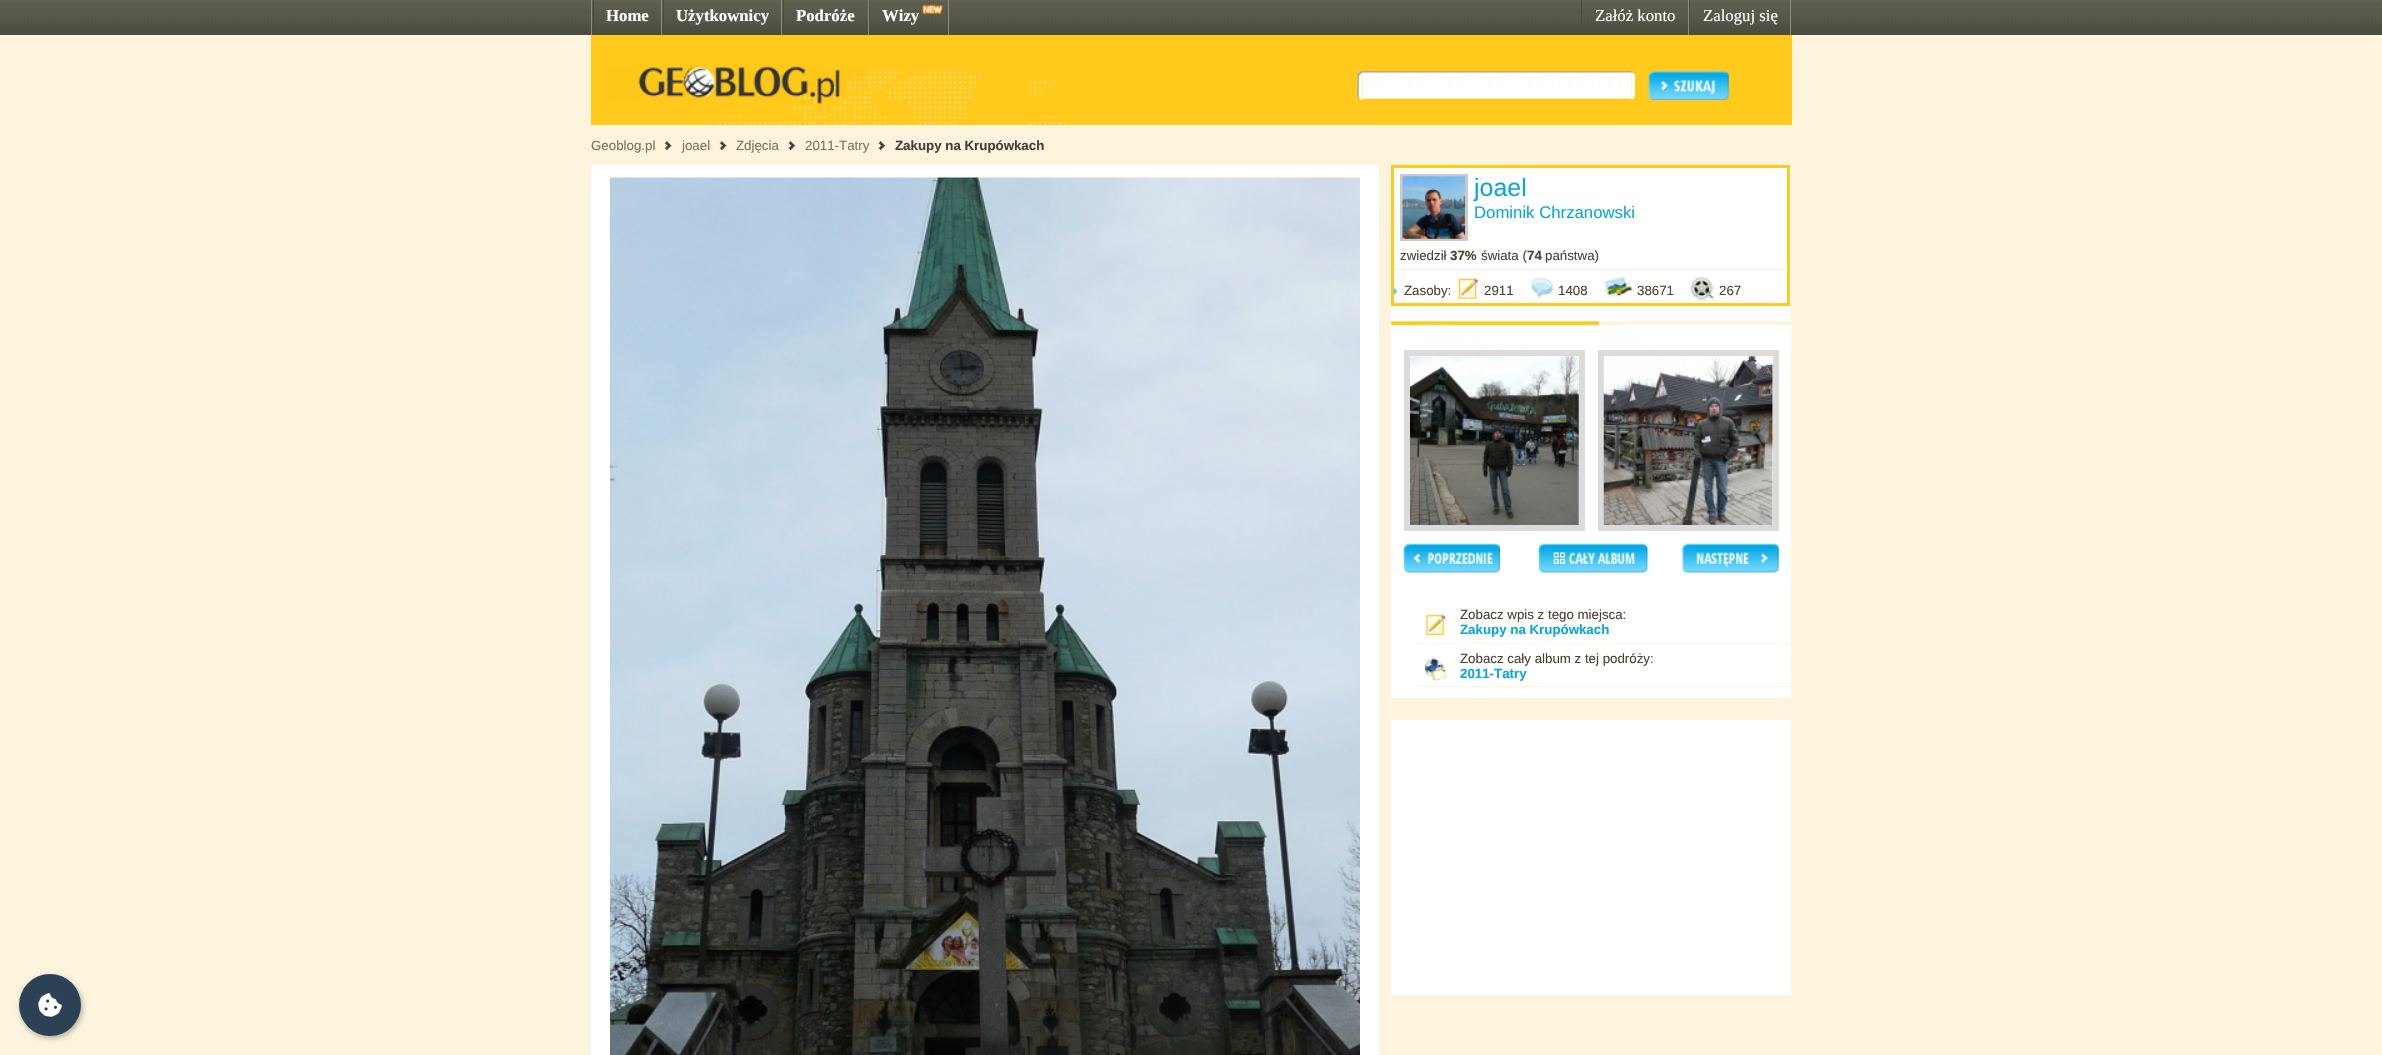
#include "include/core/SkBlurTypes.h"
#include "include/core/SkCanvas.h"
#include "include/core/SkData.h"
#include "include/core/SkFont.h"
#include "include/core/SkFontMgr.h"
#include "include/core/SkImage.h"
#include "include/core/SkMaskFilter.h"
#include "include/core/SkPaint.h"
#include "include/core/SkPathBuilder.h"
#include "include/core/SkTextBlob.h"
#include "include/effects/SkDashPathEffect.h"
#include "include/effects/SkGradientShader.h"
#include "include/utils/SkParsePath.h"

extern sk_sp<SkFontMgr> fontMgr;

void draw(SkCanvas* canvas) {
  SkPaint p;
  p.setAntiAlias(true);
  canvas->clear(SkColorSetRGB(252, 244, 221));
  canvas->drawImageRect(SkImages::DeferredFromEncodedData(SkData::MakeFromFileName("images/1.png")), SkRect::MakeLTRB(0, 0, 2382, 35), SkSamplingOptions());
  p.setColor(SkColorSetRGB(140, 141, 131));
  canvas->drawRect(SkRect::MakeLTRB(591, 0, 592, 35), p);
  canvas->drawRect(SkRect::MakeLTRB(661, 0, 662, 35), p);
  p.setColor(SkColorSetRGB(73, 74, 65));
  canvas->drawRect(SkRect::MakeLTRB(593, 0, 594, 35), p);
  p.setColor(SkColorSetRGB(140, 141, 131));
  canvas->drawRect(SkRect::MakeLTRB(781, 0, 782, 35), p);
  p.setColor(SkColorSetRGB(73, 74, 65));
  canvas->drawRect(SkRect::MakeLTRB(663, 0, 664, 35), p);
  p.setColor(SkColorSetRGB(140, 141, 131));
  canvas->drawRect(SkRect::MakeLTRB(868, 0, 869, 35), p);
  p.setColor(SkColorSetRGB(73, 74, 65));
  canvas->drawRect(SkRect::MakeLTRB(783, 0, 784, 35), p);
  p.setColor(SkColorSetRGB(140, 141, 131));
  canvas->drawRect(SkRect::MakeLTRB(948, 0, 949, 35), p);
  p.setColor(SkColorSetRGB(73, 74, 65));
  canvas->drawRect(SkRect::MakeLTRB(869, 0, 870, 35), p);
  canvas->drawImageRect(SkImages::DeferredFromEncodedData(SkData::MakeFromFileName("images/2.png")), SkRect::MakeLTRB(922, 4, 943, 14), SkSamplingOptions());
  p.setColor(SkColorSetRGB(140, 141, 131));
  canvas->drawRect(SkRect::MakeLTRB(1688, 0, 1689, 35), p);
  p.setColor(SkColorSetRGB(73, 74, 65));
  canvas->drawRect(SkRect::MakeLTRB(1581, 0, 1582, 35), p);
  p.setColor(SkColorSetRGB(140, 141, 131));
  canvas->drawRect(SkRect::MakeLTRB(1790, 0, 1791, 35), p);
  p.setColor(SkColorSetRGB(73, 74, 65));
  canvas->drawRect(SkRect::MakeLTRB(1689, 0, 1690, 35), p);
  p.setColor(SkColorSetRGB(255, 202, 28));
  canvas->drawRect(SkRect::MakeLTRB(591, 35, 1792, 125), p);
  canvas->drawImageRect(SkImages::DeferredFromEncodedData(SkData::MakeFromFileName("images/3.png")), SkRect::MakeLTRB(592, 65, 1067, 125), SkSamplingOptions());
  canvas->drawImageRect(SkImages::DeferredFromEncodedData(SkData::MakeFromFileName("images/4.png")), SkRect::MakeLTRB(1357, 70, 1363, 101), SkSamplingOptions());
  canvas->drawImageRect(SkImages::DeferredFromEncodedData(SkData::MakeFromFileName("images/5.png")), SkRect::MakeLTRB(1362, 70, 1632, 99), SkSamplingOptions());
  canvas->drawImageRect(SkImages::DeferredFromEncodedData(SkData::MakeFromFileName("images/6.png")), SkRect::MakeLTRB(1631, 70, 1637, 102), SkSamplingOptions());
  canvas->drawImageRect(SkImages::DeferredFromEncodedData(SkData::MakeFromFileName("images/7.png")), SkRect::MakeLTRB(1648, 71, 1729, 100), SkSamplingOptions());
  canvas->drawImageRect(SkImages::DeferredFromEncodedData(SkData::MakeFromFileName("images/8.png")), SkRect::MakeLTRB(664, 141, 672, 150), SkSamplingOptions());
  canvas->drawImageRect(SkImages::DeferredFromEncodedData(SkData::MakeFromFileName("images/8.png")), SkRect::MakeLTRB(719, 141, 727, 150), SkSamplingOptions());
  canvas->drawImageRect(SkImages::DeferredFromEncodedData(SkData::MakeFromFileName("images/9.png")), SkRect::MakeLTRB(788, 141, 796, 150), SkSamplingOptions());
  canvas->drawImageRect(SkImages::DeferredFromEncodedData(SkData::MakeFromFileName("images/9.png")), SkRect::MakeLTRB(878, 141, 886, 150), SkSamplingOptions());
  p.setColor(SK_ColorWHITE);
  canvas->drawRect(SkRect::MakeLTRB(591, 165, 1379, 1055), p);
  canvas->drawImageRect(SkImages::DeferredFromEncodedData(SkData::MakeFromFileName("images/10.png")), SkRect::MakeLTRB(610, 177, 1360, 1055), SkSamplingOptions());
  canvas->drawRect(SkRect::MakeLTRB(1391, 165, 1791, 698), p);
  p.setStyle(SkPaint::kStroke_Style);
  p.setStrokeWidth(3);
  p.setColor(SkColorSetRGB(255, 202, 28));
  canvas->drawRect(SkRect::MakeLTRB(1392.5f, 166.5f, 1788.5f, 304.5f), p);
  p.setStyle(SkPaint::kFill_Style);
  p.setColor(SkColorSetRGB(240, 240, 240));
  canvas->drawRect(SkRect::MakeLTRB(1394, 269, 1788, 270), p);
  p.setStyle(SkPaint::kStroke_Style);
  p.setColor(SkColorSetRGB(202, 202, 202));
  canvas->drawRect(SkRect::MakeLTRB(1401.5f, 175.5f, 1466.5f, 239.5f), p);
  canvas->drawImageRect(SkImages::DeferredFromEncodedData(SkData::MakeFromFileName("images/11.png")), SkRect::MakeLTRB(1402, 176, 1465, 239), SkSamplingOptions());
  canvas->drawImageRect(SkImages::DeferredFromEncodedData(SkData::MakeFromFileName("images/12.png")), SkRect::MakeLTRB(1393, 287, 1398, 295), SkSamplingOptions());
  canvas->drawImageRect(SkImages::DeferredFromEncodedData(SkData::MakeFromFileName("images/13.png")), SkRect::MakeLTRB(1458, 278, 1479, 299), SkSamplingOptions());
  canvas->drawImageRect(SkImages::DeferredFromEncodedData(SkData::MakeFromFileName("images/14.png")), SkRect::MakeLTRB(1531, 277, 1553, 298), SkSamplingOptions());
  canvas->drawImageRect(SkImages::DeferredFromEncodedData(SkData::MakeFromFileName("images/15.png")), SkRect::MakeLTRB(1603, 276, 1633, 297), SkSamplingOptions());
  canvas->drawImageRect(SkImages::DeferredFromEncodedData(SkData::MakeFromFileName("images/16.png")), SkRect::MakeLTRB(1690, 276, 1714, 302), SkSamplingOptions());
  canvas->drawImageRect(SkImages::DeferredFromEncodedData(SkData::MakeFromFileName("images/17.png")), SkRect::MakeLTRB(1391, 321, 1792, 350), SkSamplingOptions());
  p.setStrokeWidth(6);
  p.setColor(SkColorSetRGB(219, 219, 219));
  canvas->drawRect(SkRect::MakeLTRB(1407, 353, 1582, 528), p);
  canvas->drawImageRect(SkImages::DeferredFromEncodedData(SkData::MakeFromFileName("images/18.png")), SkRect::MakeLTRB(1410, 356, 1579, 525), SkSamplingOptions());
  canvas->drawRect(SkRect::MakeLTRB(1601, 353, 1776, 528), p);
  canvas->drawImageRect(SkImages::DeferredFromEncodedData(SkData::MakeFromFileName("images/19.png")), SkRect::MakeLTRB(1603, 356, 1773, 525), SkSamplingOptions());
  canvas->drawImageRect(SkImages::DeferredFromEncodedData(SkData::MakeFromFileName("images/20.png")), SkRect::MakeLTRB(1403, 543, 1500, 573), SkSamplingOptions());
  canvas->drawImageRect(SkImages::DeferredFromEncodedData(SkData::MakeFromFileName("images/21.png")), SkRect::MakeLTRB(1538, 543, 1648, 573), SkSamplingOptions());
  canvas->drawImageRect(SkImages::DeferredFromEncodedData(SkData::MakeFromFileName("images/22.png")), SkRect::MakeLTRB(1682, 543, 1779, 573), SkSamplingOptions());
  p.setStyle(SkPaint::kFill_Style);
  p.setColor(SkColorSetRGB(250, 245, 223));
  canvas->drawRect(SkRect::MakeLTRB(1416, 643, 1791, 644), p);
  canvas->drawImageRect(SkImages::DeferredFromEncodedData(SkData::MakeFromFileName("images/23.png")), SkRect::MakeLTRB(1426, 614, 1447, 636), SkSamplingOptions());
  canvas->drawRect(SkRect::MakeLTRB(1416, 686, 1791, 687), p);
  canvas->drawImageRect(SkImages::DeferredFromEncodedData(SkData::MakeFromFileName("images/24.png")), SkRect::MakeLTRB(1424, 658, 1448, 682), SkSamplingOptions());
  p.setColor(SK_ColorWHITE);
  canvas->drawRect(SkRect::MakeLTRB(1391, 720, 1791, 995), p);
  p.setColor(SkColorSetARGB(64, 0, 0, 0));
  p.setMaskFilter(SkMaskFilter::MakeBlur(kNormal_SkBlurStyle, 2.5f));
  canvas->drawRoundRect(SkRect::MakeLTRB(20, 976, 83, 1039), 31.5f, 31.5f, p);
  p.setMaskFilter(nullptr);
  p.setColor(SkColorSetRGB(45, 65, 86));
  canvas->drawCircle(50, 1005, 31, p);
  canvas->drawImageRect(SkImages::DeferredFromEncodedData(SkData::MakeFromFileName("images/25.png")), SkRect::MakeLTRB(38, 993, 62, 1017), SkSamplingOptions());
  SkFont font1(fontMgr->matchFamilyStyle("Liberation Serif", SkFontStyle::Bold()), 16.75f);
  font1.setSubpixel(true);
  p.setColor(SK_ColorWHITE);
  canvas->drawString("Home", 606, 21, font1, p);
  canvas->drawString("Użytkownicy", 676, 21, font1, p);
  canvas->drawString("Podróże", 796, 21, font1, p);
  canvas->drawString("Wizy", 882, 21, font1, p);
  SkFont font2(fontMgr->matchFamilyStyle("Liberation Serif", SkFontStyle::Normal()), 16.75f);
  font2.setSubpixel(true);
  canvas->drawString("Załóż konto", 1595, 21, font2, p);
  canvas->drawString("Zaloguj się", 1703, 21, font2, p);
  SkFont font3(fontMgr->matchFamilyStyle("Liberation Sans", SkFontStyle::Normal()), 13.3f);
  font3.setSubpixel(true);
  p.setColor(SkColorSetRGB(118, 118, 92));
  canvas->drawString("Geoblog.pl", 591, 150, font3, p);
  canvas->drawString("joael", 682, 150, font3, p);
  canvas->drawString("Zdjęcia", 736, 150, font3, p);
  canvas->drawString("2011-Tatry", 805, 150, font3, p);
  SkFont font4(fontMgr->matchFamilyStyle("Liberation Sans", SkFontStyle::Bold()), 13.3f);
  font4.setSubpixel(true);
  p.setColor(SkColorSetRGB(68, 63, 57));
  canvas->drawString("Zakupy na Krupówkach", 895, 150, font4, p);
  SkFont font5(fontMgr->matchFamilyStyle("Liberation Sans", SkFontStyle::Normal()), 25);
  font5.setSubpixel(true);
  p.setColor(SkColorSetRGB(11, 167, 216));
  canvas->drawString("joael", 1474, 196, font5, p);
  SkFont font6(fontMgr->matchFamilyStyle("Liberation Sans", SkFontStyle::Normal()), 16.75f);
  font6.setSubpixel(true);
  canvas->drawString("Dominik Chrzanowski", 1474, 218, font6, p);
  p.setColor(SkColorSetRGB(75, 66, 51));
  canvas->drawString("zwiedził", 1400, 260, font3, p);
  canvas->drawString("37%", 1450, 260, font4, p);
  canvas->drawString("świata (", 1481, 260, font3, p);
  canvas->drawString("74", 1527, 260, font4, p);
  canvas->drawString("państwa)", 1545, 260, font3, p);
  canvas->drawString("Zasoby:", 1404, 295, font3, p);
  canvas->drawString("2911", 1484, 295, font3, p);
  canvas->drawString("1408", 1558, 295, font3, p);
  canvas->drawString("38671", 1637, 295, font3, p);
  canvas->drawString("267", 1719, 295, font3, p);
  canvas->drawString("Zobacz wpis z tego miejsca:", 1460, 619, font3, p);
  p.setColor(SkColorSetRGB(11, 167, 216));
  canvas->drawString("Zakupy na Krupówkach", 1460, 634, font4, p);
  p.setColor(SkColorSetRGB(75, 66, 51));
  canvas->drawString("Zobacz cały album z tej podróży:", 1460, 663, font3, p);
  p.setColor(SkColorSetRGB(11, 167, 216));
  canvas->drawString("2011-Tatry", 1460, 678, font4, p);
}
